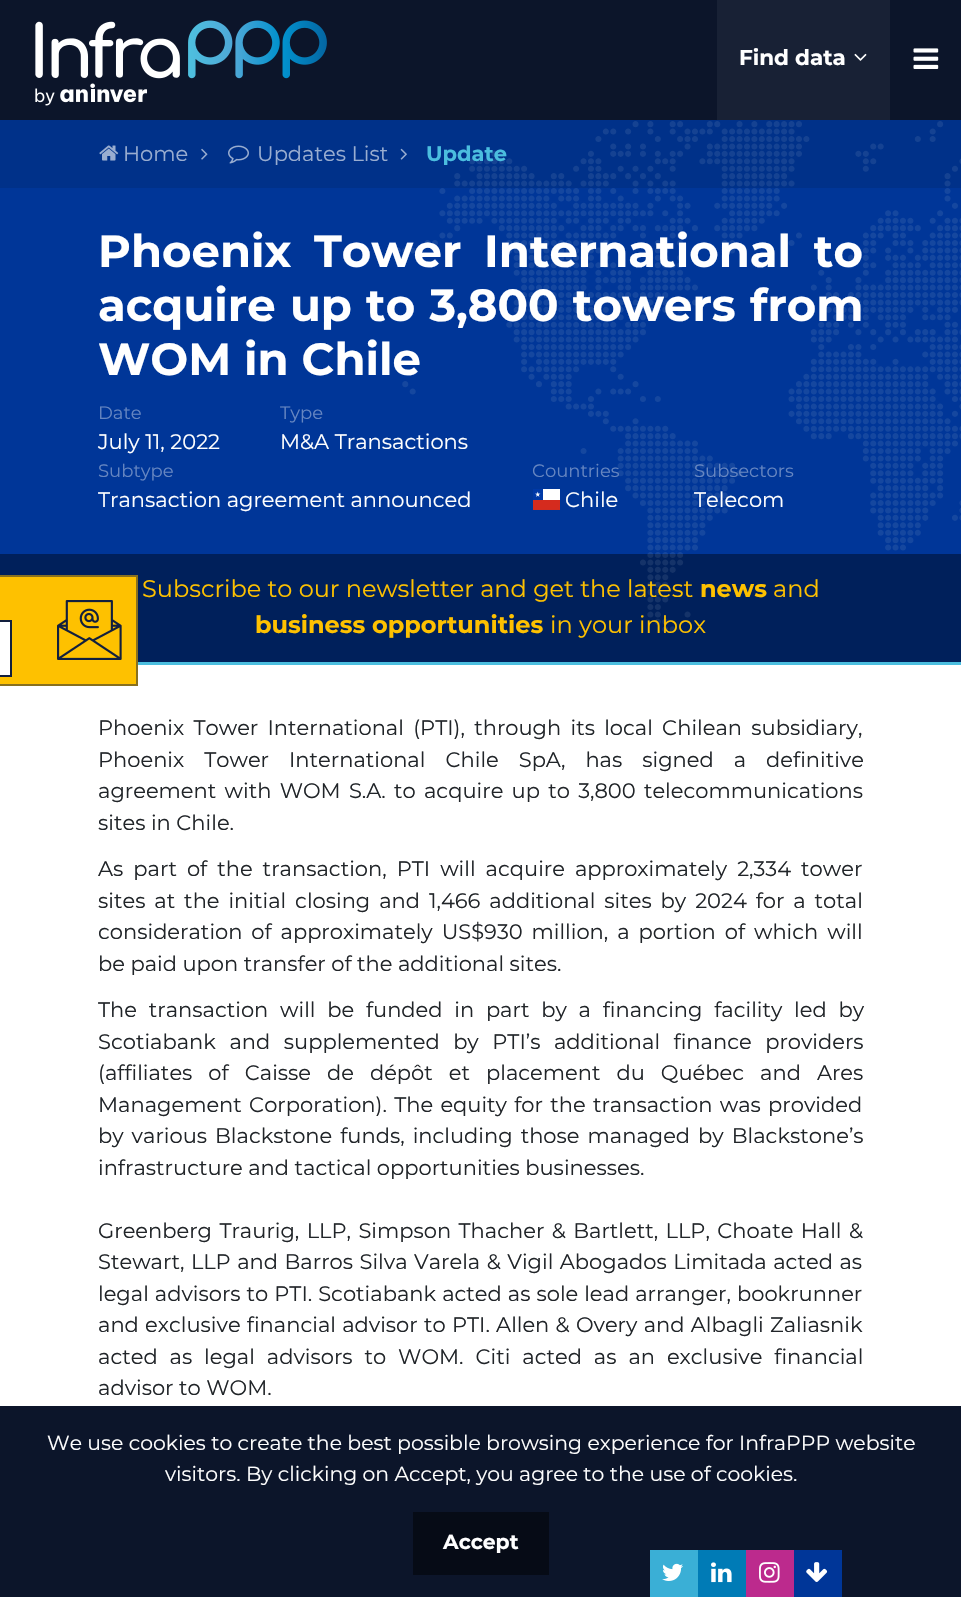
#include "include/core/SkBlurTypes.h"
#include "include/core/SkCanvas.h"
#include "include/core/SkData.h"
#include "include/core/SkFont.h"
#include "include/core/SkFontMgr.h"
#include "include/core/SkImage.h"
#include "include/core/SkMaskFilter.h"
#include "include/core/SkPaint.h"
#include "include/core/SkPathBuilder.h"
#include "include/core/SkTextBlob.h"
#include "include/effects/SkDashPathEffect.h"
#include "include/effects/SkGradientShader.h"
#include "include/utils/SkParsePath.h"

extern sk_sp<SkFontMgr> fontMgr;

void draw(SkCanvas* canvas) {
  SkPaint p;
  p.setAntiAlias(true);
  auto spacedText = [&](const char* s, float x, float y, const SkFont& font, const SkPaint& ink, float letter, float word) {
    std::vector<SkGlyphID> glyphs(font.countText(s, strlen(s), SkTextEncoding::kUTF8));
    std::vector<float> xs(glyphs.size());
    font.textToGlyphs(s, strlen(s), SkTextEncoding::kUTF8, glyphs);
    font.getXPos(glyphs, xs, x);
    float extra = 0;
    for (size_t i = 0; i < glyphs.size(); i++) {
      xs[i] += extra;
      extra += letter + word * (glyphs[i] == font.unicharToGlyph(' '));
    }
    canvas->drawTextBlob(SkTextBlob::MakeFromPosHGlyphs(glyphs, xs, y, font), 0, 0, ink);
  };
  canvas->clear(SK_ColorWHITE);
  p.setColor(SkColorSetRGB(12, 21, 42));
  canvas->drawRect(SkRect::MakeLTRB(0, 0, 961, 120), p);
  canvas->drawImageRect(SkImages::DeferredFromEncodedData(SkData::MakeFromFileName("images/1.png")), SkRect::MakeLTRB(35, 20, 327, 106), SkSamplingOptions());
  p.setColor(SkColorSetRGB(24, 33, 53));
  canvas->drawRect(SkRect::MakeLTRB(717, 0, 890, 120), p);
  canvas->drawImageRect(SkImages::DeferredFromEncodedData(SkData::MakeFromFileName("images/2.png")), SkRect::MakeLTRB(854, 53, 867, 61), SkSamplingOptions());
  canvas->drawImageRect(SkImages::DeferredFromEncodedData(SkData::MakeFromFileName("images/3.png")), SkRect::MakeLTRB(913, 48, 939, 69), SkSamplingOptions());
  p.setColor(SkColorSetRGB(0, 54, 152));
  canvas->drawRect(SkRect::MakeLTRB(0, 188, 961, 554), p);
  p.setColor(SkColorSetRGB(0, 49, 137));
  canvas->drawRect(SkRect::MakeLTRB(0, 120, 961, 188), p);
  canvas->drawImageRect(SkImages::DeferredFromEncodedData(SkData::MakeFromFileName("images/4.png")), SkRect::MakeLTRB(99, 145, 119, 161), SkSamplingOptions());
  canvas->drawImageRect(SkImages::DeferredFromEncodedData(SkData::MakeFromFileName("images/5.png")), SkRect::MakeLTRB(201, 148, 208, 160), SkSamplingOptions());
  canvas->drawImageRect(SkImages::DeferredFromEncodedData(SkData::MakeFromFileName("images/6.png")), SkRect::MakeLTRB(228, 145, 249, 164), SkSamplingOptions());
  p.setColor(SkColorSetRGB(0, 32, 91));
  canvas->drawRect(SkRect::MakeLTRB(0, 554, 961, 662), p);
  canvas->drawImageRect(SkImages::DeferredFromEncodedData(SkData::MakeFromFileName("images/8.png")), SkRect::MakeLTRB(395, 121, 961, 632), SkSamplingOptions());
  canvas->drawImageRect(SkImages::DeferredFromEncodedData(SkData::MakeFromFileName("images/7.png")), SkRect::MakeLTRB(400, 148, 407, 160), SkSamplingOptions());
  canvas->drawImageRect(SkImages::DeferredFromEncodedData(SkData::MakeFromFileName("images/9.png")), SkRect::MakeLTRB(533, 489, 560, 510), SkSamplingOptions());
  p.setColor(SkColorSetRGB(75, 190, 223));
  canvas->drawRect(SkRect::MakeLTRB(138, 662, 961, 665), p);
  p.setColor(SkColorSetRGB(254, 193, 0));
  canvas->drawRect(SkRect::MakeLTRB(-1, 576, 137, 685), p);
  p.setStyle(SkPaint::kStroke_Style);
  p.setStrokeWidth(2);
  p.setColor(SkColorSetRGB(136, 112, 31));
  canvas->drawRect(SkRect::MakeLTRB(-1, 576, 137, 685), p);
  p.setStyle(SkPaint::kFill_Style);
  p.setColor(SK_ColorWHITE);
  canvas->drawRect(SkRect::MakeLTRB(-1, 621, 11, 676), p);
  p.setStyle(SkPaint::kStroke_Style);
  p.setColor(SkColorSetRGB(18, 31, 62));
  canvas->drawRect(SkRect::MakeLTRB(-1, 621, 11, 676), p);
  canvas->drawImageRect(SkImages::DeferredFromEncodedData(SkData::MakeFromFileName("images/10.png")), SkRect::MakeLTRB(57, 600, 122, 660), SkSamplingOptions());
  p.setStyle(SkPaint::kFill_Style);
  p.setColor(SkColorSetRGB(12, 21, 42));
  canvas->drawRect(SkRect::MakeLTRB(0, 1406, 961, 1597), p);
  p.setColor(SkColorSetRGB(58, 175, 214));
  canvas->drawRect(SkRect::MakeLTRB(650, 1550, 698, 1597), p);
  canvas->drawImageRect(SkImages::DeferredFromEncodedData(SkData::MakeFromFileName("images/11.png")), SkRect::MakeLTRB(662, 1563, 683, 1581), SkSamplingOptions());
  p.setColor(SkColorSetRGB(0, 123, 182));
  canvas->drawRect(SkRect::MakeLTRB(698, 1550, 746, 1597), p);
  canvas->drawImageRect(SkImages::DeferredFromEncodedData(SkData::MakeFromFileName("images/12.png")), SkRect::MakeLTRB(711, 1562, 732, 1583), SkSamplingOptions());
  p.setColor(SkColorSetRGB(188, 42, 141));
  canvas->drawRect(SkRect::MakeLTRB(746, 1550, 794, 1597), p);
  canvas->drawImageRect(SkImages::DeferredFromEncodedData(SkData::MakeFromFileName("images/13.png")), SkRect::MakeLTRB(759, 1562, 780, 1583), SkSamplingOptions());
  p.setColor(SkColorSetRGB(0, 54, 152));
  canvas->drawRect(SkRect::MakeLTRB(794, 1550, 842, 1597), p);
  canvas->drawImageRect(SkImages::DeferredFromEncodedData(SkData::MakeFromFileName("images/14.png")), SkRect::MakeLTRB(806, 1562, 828, 1582), SkSamplingOptions());
  p.setColor(SkColorSetRGB(6, 11, 22));
  canvas->drawRect(SkRect::MakeLTRB(413, 1512, 549, 1575), p);
  SkFont font1(fontMgr->matchFamilyStyle("Montserrat", SkFontStyle::Bold()), 21.5f);
  font1.setSubpixel(true);
  p.setColor(SK_ColorWHITE);
  canvas->drawString("Find data", 739, 65, font1, p);
  SkFont font2(fontMgr->matchFamilyStyle("Montserrat", SkFontStyle::Normal()), 21);
  font2.setSubpixel(true);
  p.setColor(SkColorSetRGB(153, 173, 208));
  canvas->drawString("Home", 123, 161, font2, p);
  canvas->drawString("Updates List", 257, 161, font2, p);
  SkFont font3(fontMgr->matchFamilyStyle("Montserrat", SkFontStyle::Bold()), 21);
  font3.setSubpixel(true);
  p.setColor(SkColorSetRGB(75, 190, 223));
  canvas->drawString("Update", 426, 161, font3, p);
  SkFont font4(fontMgr->matchFamilyStyle("Montserrat", SkFontStyle::Bold()), 45);
  font4.setSubpixel(true);
  p.setColor(SK_ColorWHITE);
  spacedText("Phoenix Tower International to", 98, 267, font4, p, 0, 10);
  spacedText("acquire up to 3,800 towers from", 98, 321, font4, p, 0, 1.5f);
  canvas->drawString("WOM in Chile", 98, 375, font4, p);
  SkFont font5(fontMgr->matchFamilyStyle("Montserrat", SkFontStyle::Normal()), 18);
  font5.setSubpixel(true);
  p.setColor(SkColorSetRGB(102, 134, 193));
  canvas->drawString("Date", 98, 419, font5, p);
  p.setColor(SK_ColorWHITE);
  canvas->drawString("July 11, 2022", 98, 449, font2, p);
  p.setColor(SkColorSetRGB(102, 134, 193));
  canvas->drawString("Type", 280, 419, font5, p);
  p.setColor(SK_ColorWHITE);
  canvas->drawString("M&A Transactions", 280, 449, font2, p);
  p.setColor(SkColorSetRGB(102, 134, 193));
  canvas->drawString("Subtype", 98, 477, font5, p);
  p.setColor(SK_ColorWHITE);
  canvas->drawString("Transaction agreement announced", 98, 507, font2, p);
  p.setColor(SkColorSetRGB(102, 134, 193));
  canvas->drawString("Countries", 532, 477, font5, p);
  p.setColor(SK_ColorWHITE);
  canvas->drawString("Chile", 565, 507, font2, p);
  p.setColor(SkColorSetRGB(102, 134, 193));
  canvas->drawString("Subsectors", 694, 477, font5, p);
  p.setColor(SK_ColorWHITE);
  canvas->drawString("Telecom", 694, 507, font2, p);
  SkFont font6(fontMgr->matchFamilyStyle("Montserrat", SkFontStyle::Normal()), 24);
  font6.setSubpixel(true);
  p.setColor(SkColorSetRGB(254, 193, 0));
  canvas->drawString("Subscribe to our newsletter and get the latest", 142, 597, font6, p);
  SkFont font7(fontMgr->matchFamilyStyle("Montserrat", SkFontStyle::Bold()), 24);
  font7.setSubpixel(true);
  canvas->drawString("news", 700, 597, font7, p);
  canvas->drawString("and", 773, 597, font6, p);
  canvas->drawString("business opportunities", 255, 633, font7, p);
  canvas->drawString("in your inbox", 550, 633, font6, p);
  p.setColor(SkColorSetRGB(33, 37, 41));
  spacedText("Phoenix Tower International (PTI), through its local Chilean subsidiary,", 98, 735, font2, p, 0, 3.75f);
  spacedText("Phoenix Tower International Chile SpA, has signed a definitive", 98, 767, font2, p, 0, 14.5f);
  spacedText("agreement with WOM S.A. to acquire up to 3,800 telecommunications", 98, 798, font2, p, 0, 2.75f);
  canvas->drawString("sites in Chile.", 98, 830, font2, p);
  spacedText("As part of the transaction, PTI will acquire approximately 2,334 tower", 98, 876, font2, p, 0, 4.5f);
  spacedText("sites at the initial closing and 1,466 additional sites by 2024 for a total", 98, 908, font2, p, 0, 3.4f);
  spacedText("consideration of approximately US$930 million, a portion of which will", 98, 939, font2, p, 0, 3.4f);
  canvas->drawString("be paid upon transfer of the additional sites.", 98, 971, font2, p);
  spacedText("The transaction will be funded in part by a financing facility led by", 98, 1017, font2, p, 0, 6.25f);
  spacedText("Scotiabank and supplemented by PTI’s additional finance providers", 98, 1049, font2, p, 0, 8);
  spacedText("(affiliates of Caisse de dépôt et placement du Québec and Ares", 98, 1080, font2, p, 0, 10.5f);
  spacedText("Management Corporation). The equity for the transaction was provided", 98, 1112, font2, p, 0, 1.75f);
  spacedText("by various Blackstone funds, including those managed by Blackstone’s", 98, 1143, font2, p, 0, 2.5f);
  canvas->drawString("infrastructure and tactical opportunities businesses.", 98, 1175, font2, p);
  spacedText("Greenberg Traurig, LLP, Simpson Thacher & Bartlett, LLP, Choate Hall &", 98, 1238, font2, p, 0, 1.9f);
  spacedText("Stewart, LLP and Barros Silva Varela & Vigil Abogados Limitada acted as", 98, 1269, font2, p, 0, 1);
  spacedText("legal advisors to PTI. Scotiabank acted as sole lead arranger, bookrunner", 98, 1301, font2, p, 0, 0.5f);
  spacedText("and exclusive financial advisor to PTI. Allen & Overy and Albagli Zaliasnik", 98, 1332, font2, p, 0, 0.75f);
  spacedText("acted as legal advisors to WOM. Citi acted as an exclusive financial", 98, 1364, font2, p, 0, 6.4f);
  canvas->drawString("advisor to WOM.", 98, 1395, font2, p);
  SkFont font8(fontMgr->matchFamilyStyle("Montserrat", SkFontStyle::Normal()), 20.4f);
  font8.setSubpixel(true);
  p.setColor(SK_ColorWHITE);
  canvas->drawString("We use cookies to create the best possible browsing experience for InfraPPP website", 47, 1450, font8, p);
  canvas->drawString("visitors. By clicking on Accept, you agree to the use of cookies.", 165, 1481, font8, p);
  SkFont font9(fontMgr->matchFamilyStyle("Montserrat", SkFontStyle::Bold()), 20.4f);
  font9.setSubpixel(true);
  canvas->drawString("Accept", 443, 1549, font9, p);
}
